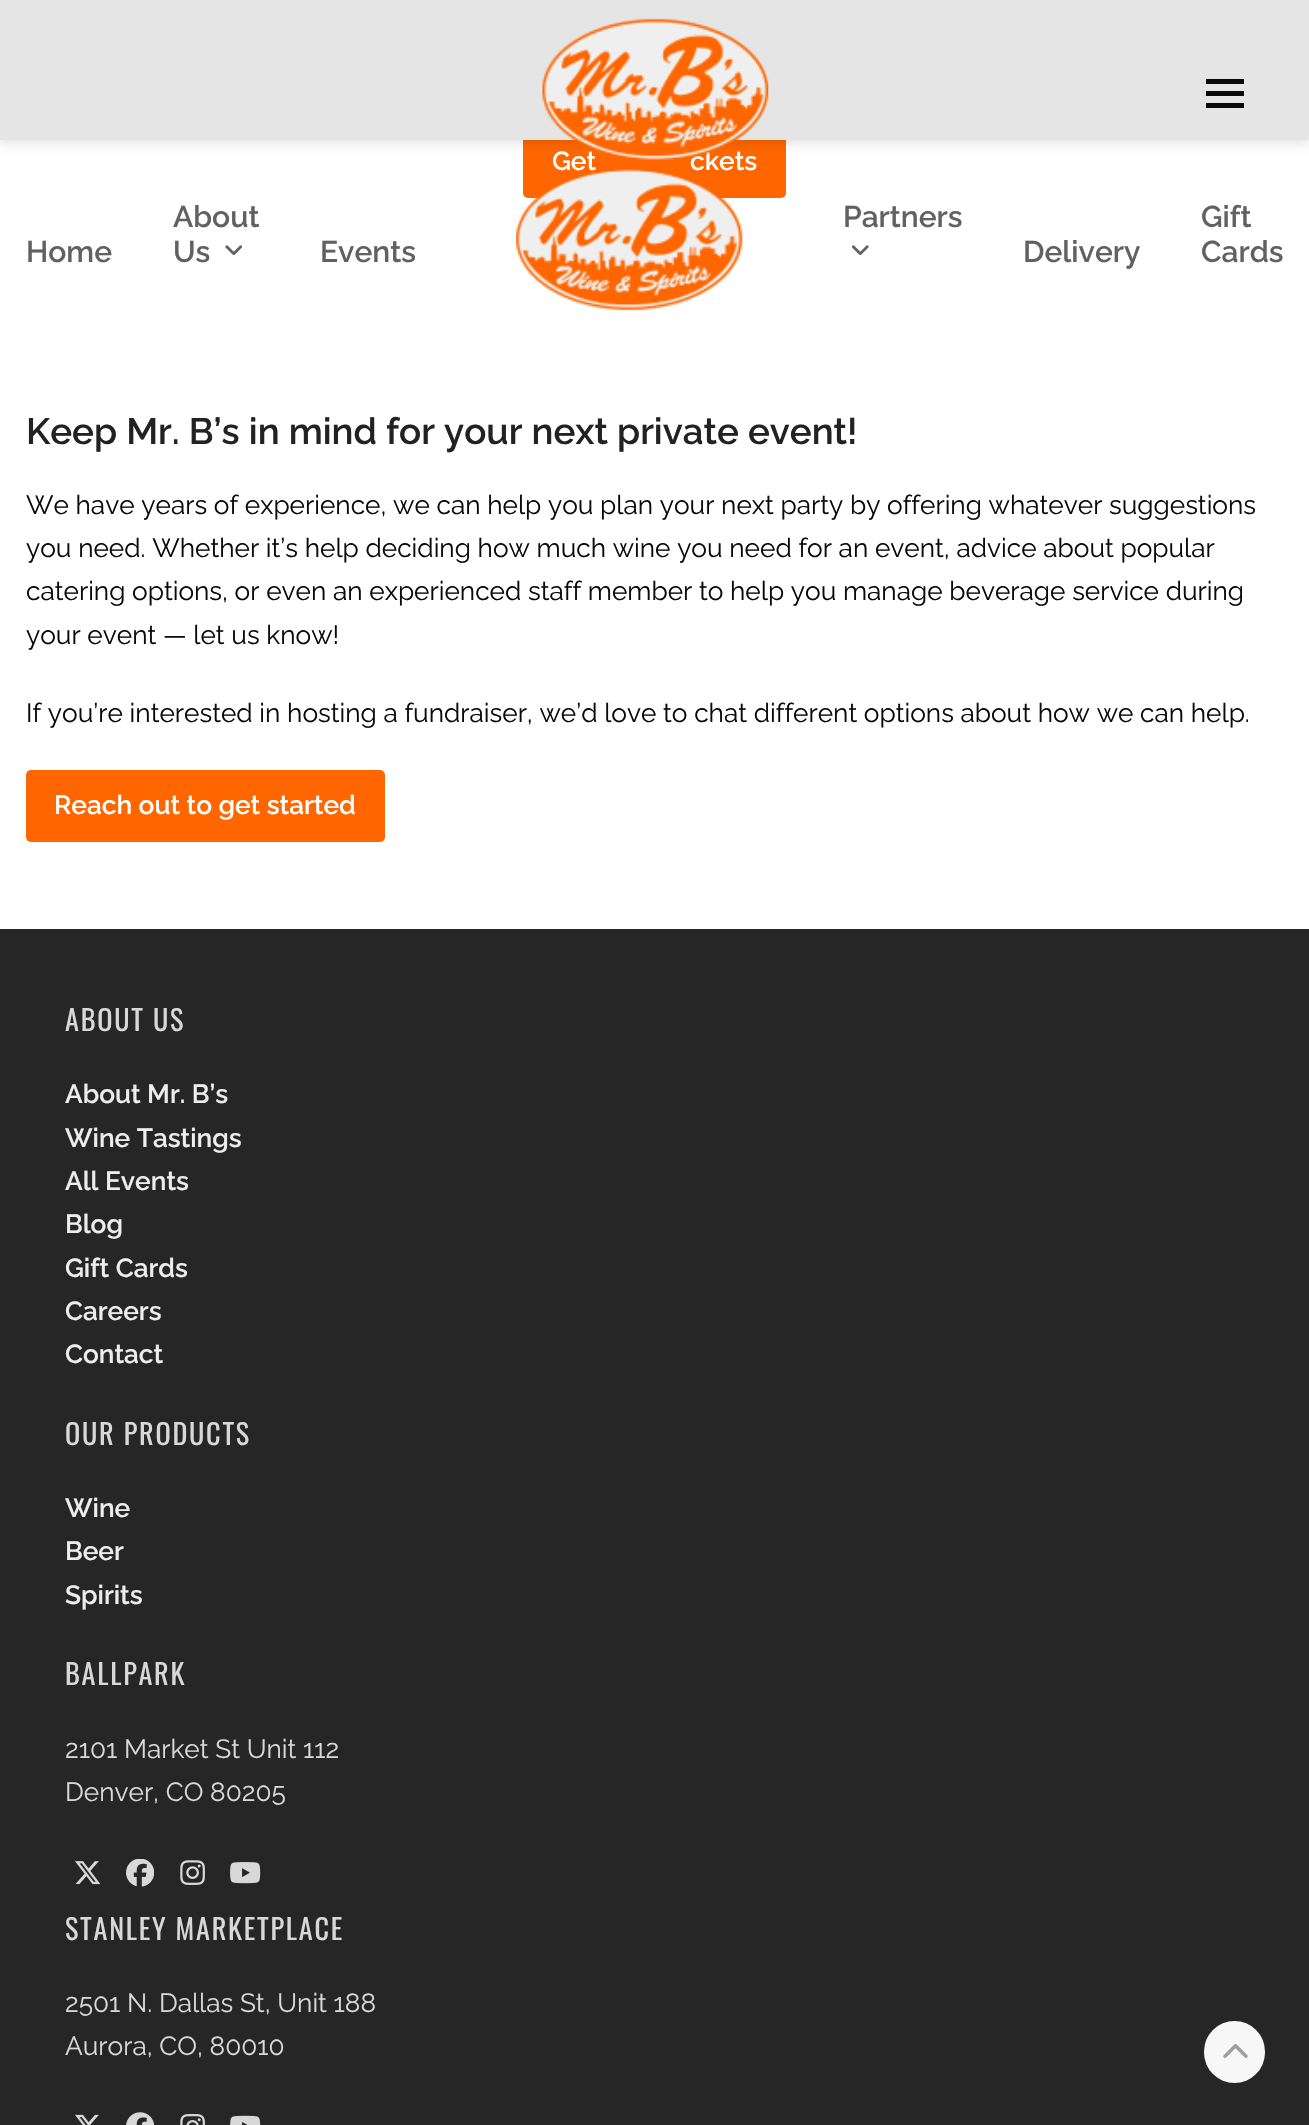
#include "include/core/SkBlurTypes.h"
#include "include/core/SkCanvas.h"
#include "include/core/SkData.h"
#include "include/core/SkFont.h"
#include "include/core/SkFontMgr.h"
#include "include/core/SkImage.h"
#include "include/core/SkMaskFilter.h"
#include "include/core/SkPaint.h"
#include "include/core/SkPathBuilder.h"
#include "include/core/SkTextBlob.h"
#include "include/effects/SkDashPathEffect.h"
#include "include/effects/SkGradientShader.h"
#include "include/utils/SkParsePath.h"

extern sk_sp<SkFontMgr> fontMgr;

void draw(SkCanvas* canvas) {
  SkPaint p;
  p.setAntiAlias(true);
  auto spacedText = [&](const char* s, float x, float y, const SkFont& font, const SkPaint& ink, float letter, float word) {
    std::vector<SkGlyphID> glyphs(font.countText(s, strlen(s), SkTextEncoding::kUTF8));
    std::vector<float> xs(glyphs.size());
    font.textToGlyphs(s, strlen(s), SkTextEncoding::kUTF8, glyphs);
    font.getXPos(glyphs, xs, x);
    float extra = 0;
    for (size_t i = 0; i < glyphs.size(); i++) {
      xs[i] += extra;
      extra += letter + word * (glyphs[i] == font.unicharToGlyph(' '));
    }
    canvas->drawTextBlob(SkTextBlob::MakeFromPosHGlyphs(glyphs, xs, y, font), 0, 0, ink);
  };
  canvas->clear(SK_ColorWHITE);
  p.setColor(SkColorSetRGB(255, 102, 0));
  canvas->drawRoundRect(SkRect::MakeLTRB(523, 126, 786, 198), 5, 5, p);
  canvas->drawRoundRect(SkRect::MakeLTRB(26, 770, 385, 842), 5, 5, p);
  p.setColor(SkColorSetARGB(26, 0, 0, 0));
  p.setMaskFilter(SkMaskFilter::MakeBlur(kNormal_SkBlurStyle, 4.5f));
  canvas->drawRect(SkRect::MakeLTRB(0, 4, 1309, 144), p);
  p.setMaskFilter(nullptr);
  p.setColor(SkColorSetRGB(229, 229, 229));
  canvas->drawRect(SkRect::MakeLTRB(0, 0, 1309, 140), p);
  p.setColor(SkColorSetRGB(10, 10, 10));
  canvas->drawRect(SkRect::MakeLTRB(1206, 91, 1244, 96), p);
  canvas->drawRect(SkRect::MakeLTRB(1206, 79, 1244, 84), p);
  canvas->drawRect(SkRect::MakeLTRB(1206, 103, 1244, 108), p);
  canvas->drawImageRect(SkImages::DeferredFromEncodedData(SkData::MakeFromFileName("images/2.png")), SkRect::MakeLTRB(225, 245, 243, 256), SkSamplingOptions());
  canvas->drawImageRect(SkImages::DeferredFromEncodedData(SkData::MakeFromFileName("images/4.png")), SkRect::MakeLTRB(851, 245, 869, 256), SkSamplingOptions());
  p.setColor(SkColorSetRGB(38, 38, 38));
  canvas->drawRect(SkRect::MakeLTRB(0, 929, 1309, 2125), p);
  canvas->drawImageRect(SkImages::DeferredFromEncodedData(SkData::MakeFromFileName("images/5.png")), SkRect::MakeLTRB(75, 1861, 101, 1885), SkSamplingOptions());
  canvas->drawImageRect(SkImages::DeferredFromEncodedData(SkData::MakeFromFileName("images/6.png")), SkRect::MakeLTRB(126, 1859, 154, 1887), SkSamplingOptions());
  canvas->drawImageRect(SkImages::DeferredFromEncodedData(SkData::MakeFromFileName("images/7.png")), SkRect::MakeLTRB(180, 1860, 205, 1885), SkSamplingOptions());
  canvas->drawImageRect(SkImages::DeferredFromEncodedData(SkData::MakeFromFileName("images/8.png")), SkRect::MakeLTRB(230, 1862, 261, 1884), SkSamplingOptions());
  canvas->drawImageRect(SkImages::DeferredFromEncodedData(SkData::MakeFromFileName("images/9.png")), SkRect::MakeLTRB(75, 2114, 99, 2125), SkSamplingOptions());
  canvas->drawImageRect(SkImages::DeferredFromEncodedData(SkData::MakeFromFileName("images/10.png")), SkRect::MakeLTRB(126, 2112, 154, 2125), SkSamplingOptions());
  canvas->drawImageRect(SkImages::DeferredFromEncodedData(SkData::MakeFromFileName("images/11.png")), SkRect::MakeLTRB(180, 2114, 205, 2125), SkSamplingOptions());
  canvas->drawImageRect(SkImages::DeferredFromEncodedData(SkData::MakeFromFileName("images/12.png")), SkRect::MakeLTRB(230, 2115, 261, 2125), SkSamplingOptions());
  p.setColor(SkColorSetRGB(247, 247, 247));
  canvas->drawRoundRect(SkRect::MakeLTRB(1204, 2021, 1265, 2083), 30.5f, 30.5f, p);
  canvas->drawImageRect(SkImages::DeferredFromEncodedData(SkData::MakeFromFileName("images/13.png")), SkRect::MakeLTRB(1223, 2044, 1248, 2058), SkSamplingOptions());
  SkFont font1(fontMgr->matchFamilyStyle("Raleway", SkFontStyle(600, SkFontStyle::kNormal_Width, SkFontStyle::kUpright_Slant)), 26.25f);
  font1.setSubpixel(true);
  p.setColor(SK_ColorWHITE);
  canvas->drawString("Get", 552, 170, font1, p);
  canvas->drawString("ckets", 690, 170, font1, p);
  SkFont font2(fontMgr->matchFamilyStyle("Raleway", SkFontStyle(600, SkFontStyle::kNormal_Width, SkFontStyle::kUpright_Slant)), 36.75f);
  font2.setSubpixel(true);
  p.setColor(SkColorSetRGB(34, 34, 34));
  canvas->drawString("Keep Mr. B’s in mind for your next private event!", 26, 444, font2, p);
  SkFont font3(fontMgr->matchFamilyStyle("Raleway", SkFontStyle(100, SkFontStyle::kNormal_Width, SkFontStyle::kUpright_Slant)), 26.25f);
  font3.setSubpixel(true);
  p.setColor(SkColorSetRGB(10, 10, 10));
  canvas->drawString("We have years of experience, we can help you plan your next party by offering whatever suggestions", 26, 514, font3, p);
  canvas->drawString("you need. Whether it’s help deciding how much wine you need for an event, advice about popular", 26, 557, font3, p);
  canvas->drawString("catering options, or even an experienced staff member to help you manage beverage service during", 26, 600, font3, p);
  canvas->drawString("your event — let us know!", 26, 644, font3, p);
  canvas->drawString("If you’re interested in hosting a fundraiser, we’d love to chat different options about how we can help.", 26, 722, font3, p);
  p.setColor(SK_ColorWHITE);
  canvas->drawString("Reach out to get started", 54, 814, font1, p);
  canvas->drawImageRect(SkImages::DeferredFromEncodedData(SkData::MakeFromFileName("images/1.png")), SkRect::MakeLTRB(542, 18, 769, 162), SkSamplingOptions());
  SkFont font4(fontMgr->matchFamilyStyle("Raleway", SkFontStyle(600, SkFontStyle::kNormal_Width, SkFontStyle::kUpright_Slant)), 30);
  font4.setSubpixel(true);
  p.setColor(SkColorSetRGB(97, 97, 97));
  canvas->drawString("Home", 26, 262, font4, p);
  canvas->drawString("About", 173, 227, font4, p);
  canvas->drawString("Us", 173, 262, font4, p);
  canvas->drawString("Events", 320, 262, font4, p);
  canvas->drawImageRect(SkImages::DeferredFromEncodedData(SkData::MakeFromFileName("images/3.png")), SkRect::MakeLTRB(516, 167, 743, 311), SkSamplingOptions());
  canvas->drawString("Partners", 843, 227, font4, p);
  canvas->drawString("Delivery", 1023, 262, font4, p);
  canvas->drawString("Gift", 1201, 227, font4, p);
  canvas->drawString("Cards", 1201, 262, font4, p);
  SkFont font5(fontMgr->matchFamilyStyle("Oswald", SkFontStyle::Normal()), 28.25f);
  font5.setSubpixel(true);
  p.setColor(SkColorSetRGB(216, 216, 216));
  spacedText("ABOUT US", 65, 1031, font5, p, 1.75f, 0);
  p.setColor(SkColorSetRGB(237, 237, 237));
  canvas->drawString("About Mr. B’s", 65, 1103, font1, p);
  canvas->drawString("Wine Tastings", 65, 1147, font1, p);
  canvas->drawString("All Events", 65, 1190, font1, p);
  canvas->drawString("Blog", 65, 1233, font1, p);
  canvas->drawString("Gift Cards", 65, 1277, font1, p);
  canvas->drawString("Careers", 65, 1320, font1, p);
  canvas->drawString("Contact", 65, 1363, font1, p);
  p.setColor(SkColorSetRGB(216, 216, 216));
  spacedText("OUR PRODUCTS", 65, 1445, font5, p, 1.75f, 0);
  p.setColor(SkColorSetRGB(237, 237, 237));
  canvas->drawString("Wine", 65, 1517, font1, p);
  canvas->drawString("Beer", 65, 1560, font1, p);
  canvas->drawString("Spirits", 65, 1604, font1, p);
  p.setColor(SkColorSetRGB(216, 216, 216));
  spacedText("BALLPARK", 65, 1685, font5, p, 1.75f, 0);
  canvas->drawString("2101 Market St Unit 112", 65, 1758, font3, p);
  canvas->drawString("Denver, CO 80205", 65, 1801, font3, p);
  spacedText("STANLEY MARKETPLACE", 65, 1940, font5, p, 1.75f, 0);
  canvas->drawString("2501 N. Dallas St, Unit 188", 65, 2012, font3, p);
  canvas->drawString("Aurora, CO, 80010", 65, 2055, font3, p);
}
